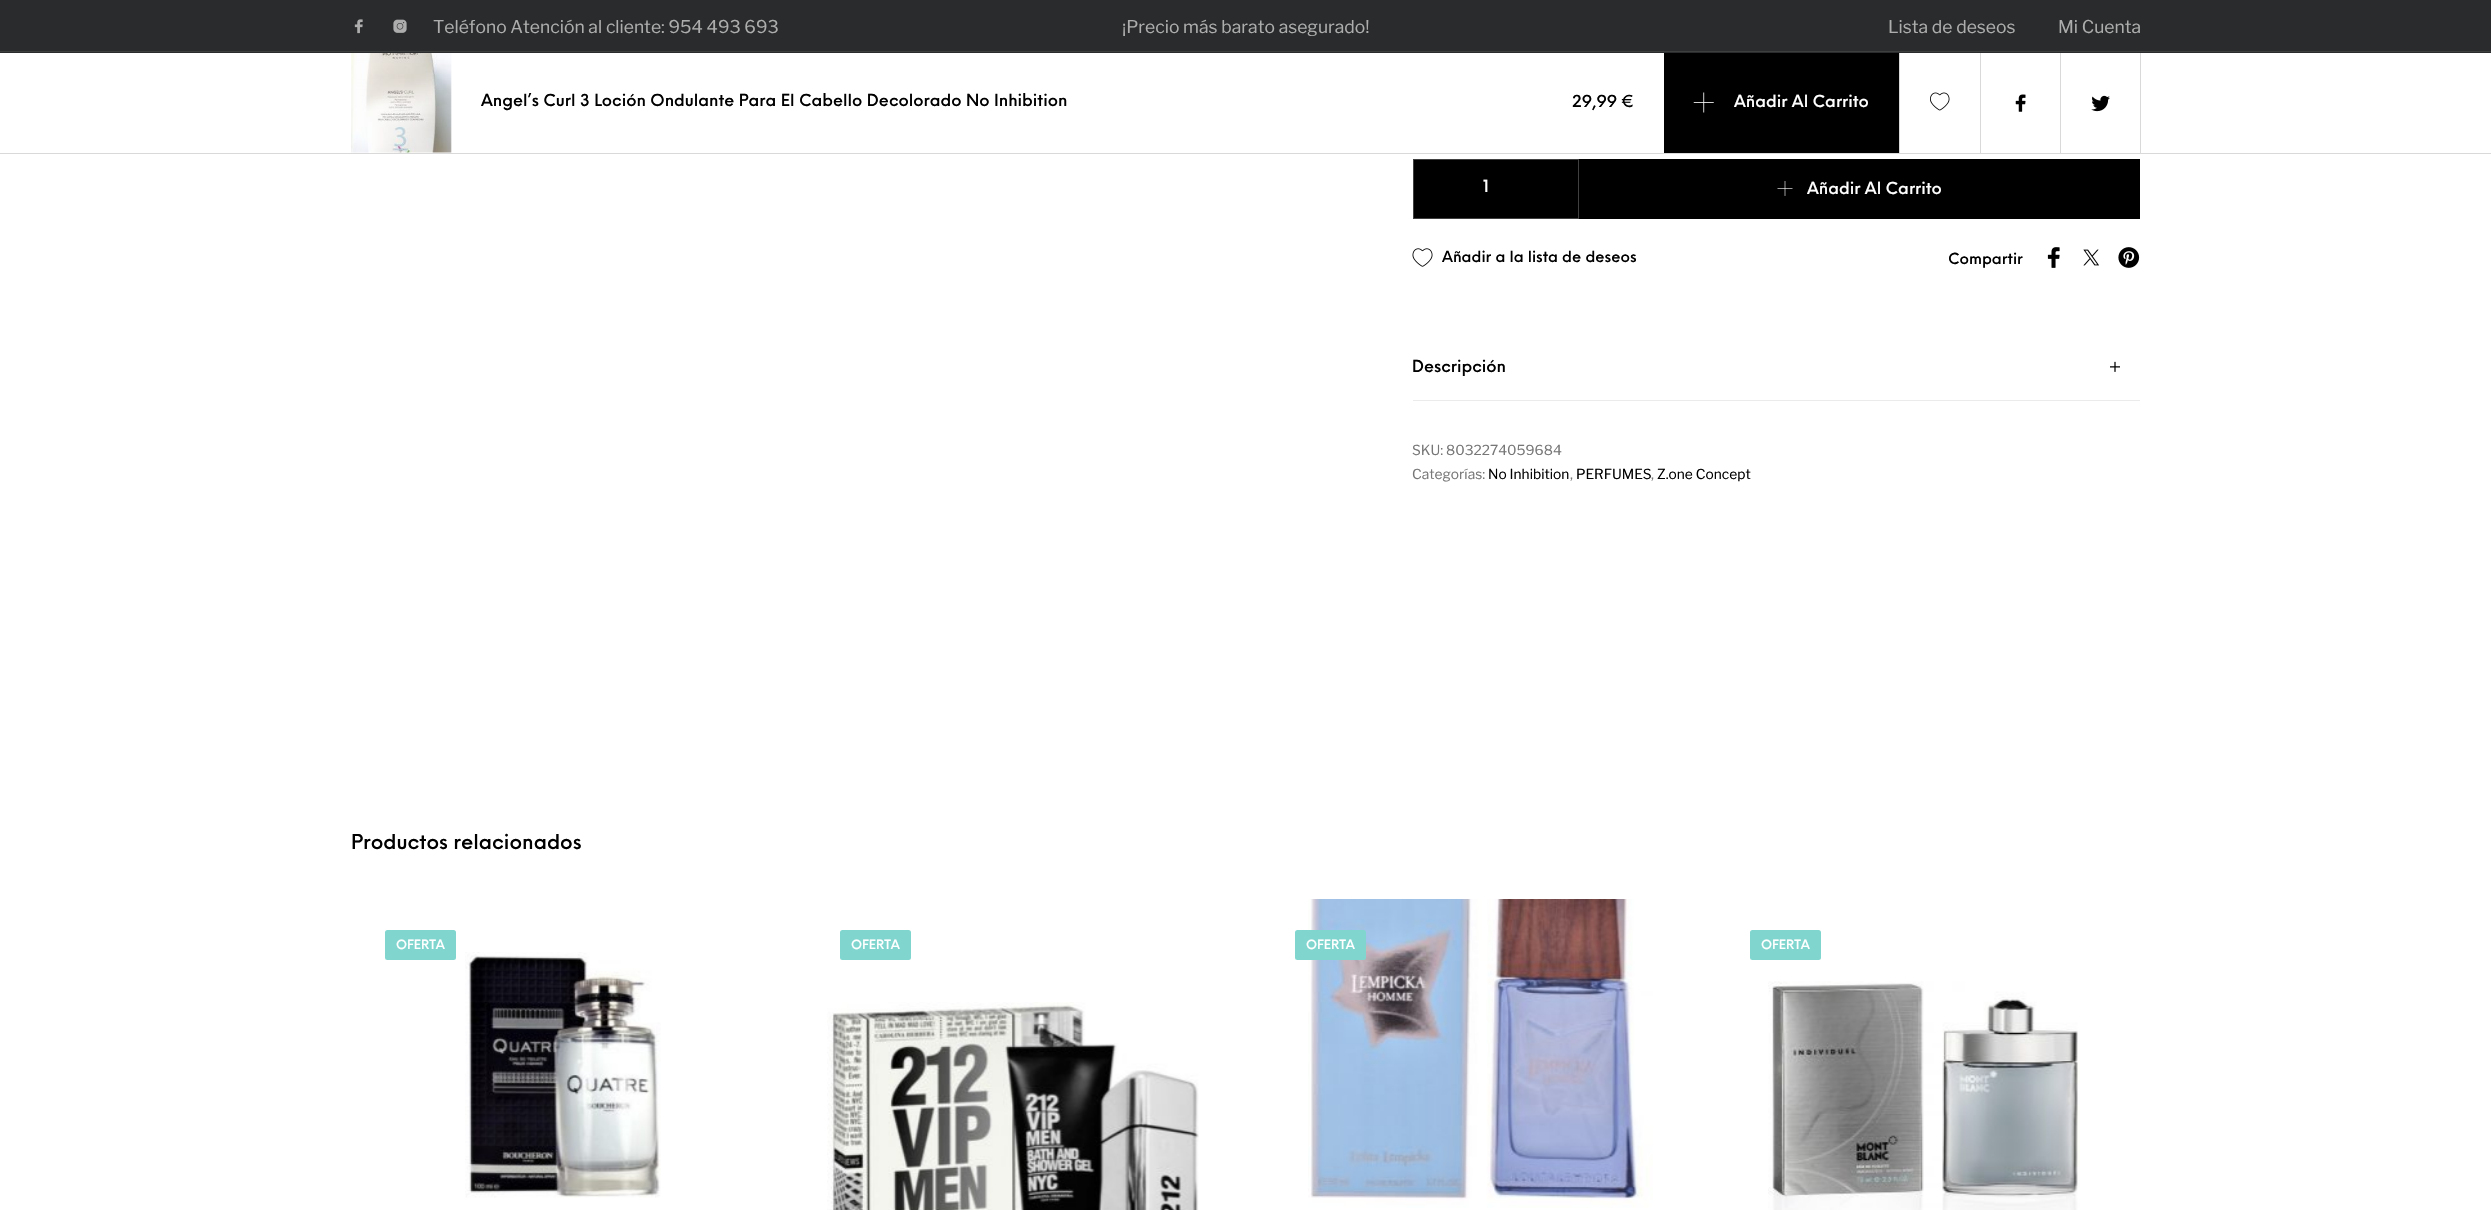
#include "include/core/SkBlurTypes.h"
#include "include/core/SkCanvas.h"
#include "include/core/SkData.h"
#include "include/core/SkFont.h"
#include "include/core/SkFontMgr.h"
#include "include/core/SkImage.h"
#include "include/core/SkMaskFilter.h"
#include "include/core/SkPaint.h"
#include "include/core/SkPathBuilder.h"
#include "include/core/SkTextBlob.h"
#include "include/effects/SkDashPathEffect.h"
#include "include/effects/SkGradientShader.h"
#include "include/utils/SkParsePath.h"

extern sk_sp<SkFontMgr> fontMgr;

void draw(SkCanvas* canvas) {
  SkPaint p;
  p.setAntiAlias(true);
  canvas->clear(SK_ColorWHITE);
  p.setColor(SkColorSetRGB(41, 43, 44));
  canvas->drawRect(SkRect::MakeLTRB(0, 0, 2491, 53), p);
  canvas->drawImageRect(SkImages::DeferredFromEncodedData(SkData::MakeFromFileName("images/1.png")), SkRect::MakeLTRB(354, 19, 363, 34), SkSamplingOptions());
  canvas->drawImageRect(SkImages::DeferredFromEncodedData(SkData::MakeFromFileName("images/2.png")), SkRect::MakeLTRB(393, 19, 407, 33), SkSamplingOptions());
  p.setColor(SkColorSetRGB(61, 63, 63));
  canvas->drawRect(SkRect::MakeLTRB(0, 51, 2491, 52), p);
  canvas->drawImageRect(SkImages::DeferredFromEncodedData(SkData::MakeFromFileName("images/3.png")), SkRect::MakeLTRB(351, 53, 452, 153), SkSamplingOptions());
  p.setColor(SK_ColorBLACK);
  canvas->drawRect(SkRect::MakeLTRB(1664, 53, 1899, 153), p);
  canvas->drawImageRect(SkImages::DeferredFromEncodedData(SkData::MakeFromFileName("images/4.png")), SkRect::MakeLTRB(1693, 92, 1714, 113), SkSamplingOptions());
  p.setColor(SkColorSetRGB(217, 217, 217));
  canvas->drawRect(SkRect::MakeLTRB(2140, 53, 2141, 153), p);
  canvas->drawRect(SkRect::MakeLTRB(1899, 53, 1900, 153), p);
  canvas->drawImageRect(SkImages::DeferredFromEncodedData(SkData::MakeFromFileName("images/5.png")), SkRect::MakeLTRB(1930, 92, 1950, 111), SkSamplingOptions());
  canvas->drawRect(SkRect::MakeLTRB(1980, 53, 1981, 153), p);
  canvas->drawImageRect(SkImages::DeferredFromEncodedData(SkData::MakeFromFileName("images/6.png")), SkRect::MakeLTRB(2015, 94, 2026, 112), SkSamplingOptions());
  canvas->drawRect(SkRect::MakeLTRB(2060, 53, 2061, 153), p);
  canvas->drawImageRect(SkImages::DeferredFromEncodedData(SkData::MakeFromFileName("images/7.png")), SkRect::MakeLTRB(2091, 95, 2110, 112), SkSamplingOptions());
  canvas->drawRect(SkRect::MakeLTRB(0, 153, 2491, 154), p);
  p.setColor(SK_ColorBLACK);
  canvas->drawRect(SkRect::MakeLTRB(1413.5f, 159.5f, 1578.5f, 218.5f), p);
  p.setStyle(SkPaint::kStroke_Style);
  p.setStrokeWidth(1);
  p.setColor(SkColorSetRGB(64, 64, 64));
  canvas->drawRect(SkRect::MakeLTRB(1413.5f, 159.5f, 1578.5f, 218.5f), p);
  p.setStyle(SkPaint::kFill_Style);
  p.setColor(SK_ColorBLACK);
  canvas->drawRect(SkRect::MakeLTRB(1579, 159, 2140, 219), p);
  canvas->drawImageRect(SkImages::DeferredFromEncodedData(SkData::MakeFromFileName("images/8.png")), SkRect::MakeLTRB(1777, 181, 1793, 196), SkSamplingOptions());
  canvas->drawImageRect(SkImages::DeferredFromEncodedData(SkData::MakeFromFileName("images/9.png")), SkRect::MakeLTRB(1412, 248, 1433, 267), SkSamplingOptions());
  canvas->drawImageRect(SkImages::DeferredFromEncodedData(SkData::MakeFromFileName("images/10.png")), SkRect::MakeLTRB(2047, 247, 2060, 268), SkSamplingOptions());
  canvas->drawImageRect(SkImages::DeferredFromEncodedData(SkData::MakeFromFileName("images/11.png")), SkRect::MakeLTRB(2083, 249, 2099, 266), SkSamplingOptions());
  canvas->drawImageRect(SkImages::DeferredFromEncodedData(SkData::MakeFromFileName("images/12.png")), SkRect::MakeLTRB(2118, 247, 2140, 268), SkSamplingOptions());
  p.setColor(SkColorSetRGB(235, 235, 235));
  canvas->drawRect(SkRect::MakeLTRB(1413, 400, 2140, 401), p);
  canvas->drawImageRect(SkImages::DeferredFromEncodedData(SkData::MakeFromFileName("images/13.png")), SkRect::MakeLTRB(2110, 361, 2120, 372), SkSamplingOptions());
  p.setColor(SkColorSetRGB(128, 214, 207));
  canvas->drawRoundRect(SkRect::MakeLTRB(385, 930, 456, 960), 2.5f, 2.5f, p);
  canvas->drawImageRect(SkImages::DeferredFromEncodedData(SkData::MakeFromFileName("images/14.png")), SkRect::MakeLTRB(465, 952, 661, 1198), SkSamplingOptions());
  canvas->drawRoundRect(SkRect::MakeLTRB(840, 930, 911, 960), 2.5f, 2.5f, p);
  canvas->drawImageRect(SkImages::DeferredFromEncodedData(SkData::MakeFromFileName("images/15.png")), SkRect::MakeLTRB(827, 1002, 1199, 1210), SkSamplingOptions());
  canvas->drawImageRect(SkImages::DeferredFromEncodedData(SkData::MakeFromFileName("images/16.png")), SkRect::MakeLTRB(1308, 899, 1653, 1208), SkSamplingOptions());
  canvas->drawRoundRect(SkRect::MakeLTRB(1295, 930, 1366, 960), 2.5f, 2.5f, p);
  canvas->drawRoundRect(SkRect::MakeLTRB(1750, 930, 1821, 960), 2.5f, 2.5f, p);
  canvas->drawImageRect(SkImages::DeferredFromEncodedData(SkData::MakeFromFileName("images/17.png")), SkRect::MakeLTRB(1768, 981, 2080, 1210), SkSamplingOptions());
  SkFont font1(fontMgr->matchFamilyStyle("Libre Franklin", SkFontStyle::Normal()), 17.5f);
  font1.setSubpixel(true);
  p.setColor(SkColorSetRGB(173, 173, 173));
  canvas->drawString("Teléfono Atención al cliente: 954 493 693", 433, 33, font1, p);
  canvas->drawString("¡Precio más barato asegurado!", 1122, 33, font1, p);
  canvas->drawString("Lista de deseos", 1888, 33, font1, p);
  canvas->drawString("Mi Cuenta", 2058, 33, font1, p);
  SkFont font2(fontMgr->matchFamilyStyle("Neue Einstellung", SkFontStyle(500, SkFontStyle::kNormal_Width, SkFontStyle::kUpright_Slant)), 16.25f);
  font2.setSubpixel(true);
  p.setColor(SK_ColorBLACK);
  canvas->drawString("Angel’s Curl 3 Loción Ondulante Para El Cabello Decolorado No Inhibition", 481, 106, font2, p);
  canvas->drawString("29,99 €", 1572, 107, font2, p);
  p.setColor(SK_ColorWHITE);
  canvas->drawString("Añadir Al Carrito", 1734, 107, font2, p);
  canvas->drawString("1", 1483, 192, font2, p);
  canvas->drawString("Añadir Al Carrito", 1807, 194, font2, p);
  SkFont font3(fontMgr->matchFamilyStyle("Neue Einstellung", SkFontStyle(500, SkFontStyle::kNormal_Width, SkFontStyle::kUpright_Slant)), 15);
  font3.setSubpixel(true);
  p.setColor(SK_ColorBLACK);
  canvas->drawString("Añadir a la lista de deseos", 1442, 262, font3, p);
  canvas->drawString("Compartir", 1948, 264, font3, p);
  canvas->drawString("Descripción", 1412, 372, font2, p);
  SkFont font4(fontMgr->matchFamilyStyle("Libre Franklin", SkFontStyle::Normal()), 13.75f);
  font4.setSubpixel(true);
  p.setColor(SkColorSetRGB(119, 119, 119));
  canvas->drawString("SKU: 8032274059684", 1412, 455, font4, p);
  canvas->drawString("Categorías:", 1412, 479, font4, p);
  p.setColor(SK_ColorBLACK);
  canvas->drawString("No Inhibition", 1488, 479, font4, p);
  p.setColor(SkColorSetRGB(119, 119, 119));
  canvas->drawString(",", 1570, 479, font4, p);
  p.setColor(SK_ColorBLACK);
  canvas->drawString("PERFUMES", 1576, 479, font4, p);
  p.setColor(SkColorSetRGB(119, 119, 119));
  canvas->drawString(",", 1651, 479, font4, p);
  p.setColor(SK_ColorBLACK);
  canvas->drawString("Z.one Concept", 1657, 479, font4, p);
  SkFont font5(fontMgr->matchFamilyStyle("Neue Einstellung", SkFontStyle(500, SkFontStyle::kNormal_Width, SkFontStyle::kUpright_Slant)), 20);
  font5.setSubpixel(true);
  canvas->drawString("Productos relacionados", 351, 849, font5, p);
  SkFont font6(fontMgr->matchFamilyStyle("Neue Einstellung", SkFontStyle(500, SkFontStyle::kNormal_Width, SkFontStyle::kUpright_Slant)), 12.5f);
  font6.setSubpixel(true);
  p.setColor(SK_ColorWHITE);
  canvas->drawString("OFERTA", 396, 949, font6, p);
  canvas->drawString("OFERTA", 851, 949, font6, p);
  canvas->drawString("OFERTA", 1306, 949, font6, p);
  canvas->drawString("OFERTA", 1761, 949, font6, p);
}
